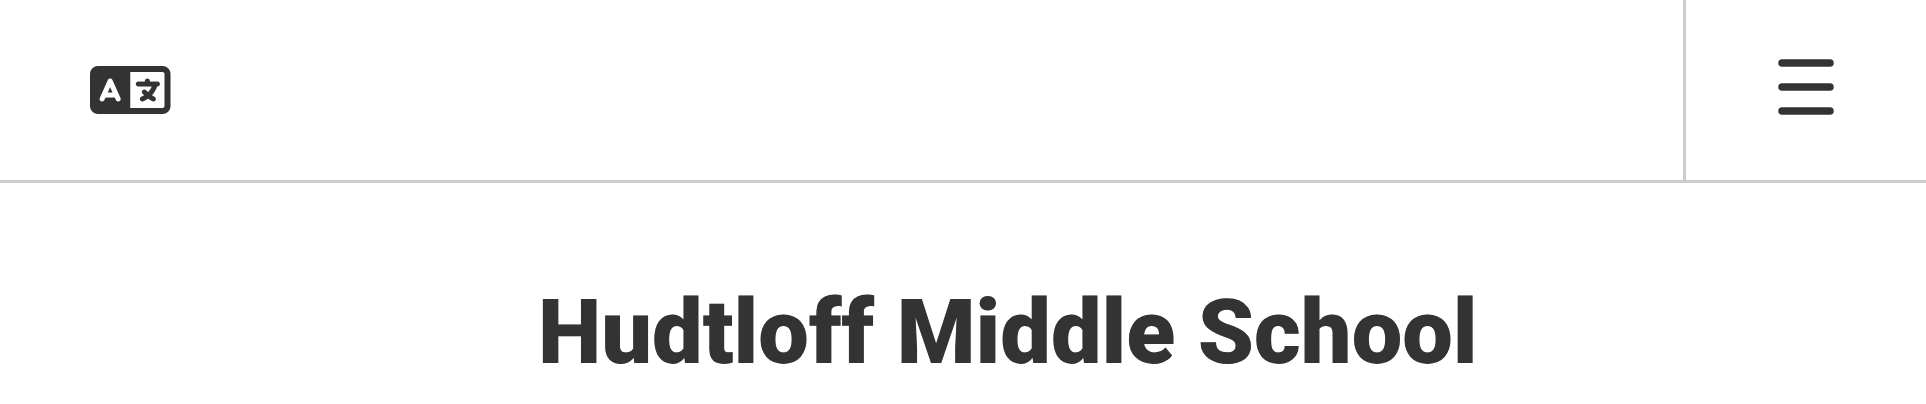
#include "include/core/SkBlurTypes.h"
#include "include/core/SkCanvas.h"
#include "include/core/SkData.h"
#include "include/core/SkFont.h"
#include "include/core/SkFontMgr.h"
#include "include/core/SkImage.h"
#include "include/core/SkMaskFilter.h"
#include "include/core/SkPaint.h"
#include "include/core/SkPathBuilder.h"
#include "include/core/SkTextBlob.h"
#include "include/effects/SkDashPathEffect.h"
#include "include/effects/SkGradientShader.h"
#include "include/utils/SkParsePath.h"

extern sk_sp<SkFontMgr> fontMgr;

void draw(SkCanvas* canvas) {
  SkPaint p;
  p.setAntiAlias(true);
  canvas->clear(SK_ColorWHITE);
  p.setColor(SkColorSetRGB(204, 204, 204));
  canvas->drawRect(SkRect::MakeLTRB(0, 180, 1926, 183), p);
  canvas->drawImageRect(SkImages::DeferredFromEncodedData(SkData::MakeFromFileName("images/1.png")), SkRect::MakeLTRB(90, 66, 171, 114), SkSamplingOptions());
  canvas->drawRect(SkRect::MakeLTRB(1683, 0, 1686, 180), p);
  p.setStyle(SkPaint::kStroke_Style);
  p.setStrokeWidth(7.5f);
  p.setStrokeCap(SkPaint::kRound_Cap);
  p.setColor(SkColorSetRGB(51, 51, 51));
  canvas->drawPath(SkPathBuilder().moveTo(1782, 63).lineTo(1830, 63).moveTo(1782, 87).lineTo(1830, 87).moveTo(1782, 111).lineTo(1830, 111).detach(), p);
  SkFont font1(fontMgr->matchFamilyStyle("Roboto", SkFontStyle(900, SkFontStyle::kNormal_Width, SkFontStyle::kUpright_Slant)), 90);
  font1.setSubpixel(true);
  p.setStyle(SkPaint::kFill_Style);
  canvas->drawString("Hudtloff Middle School", 538, 363, font1, p);
}
